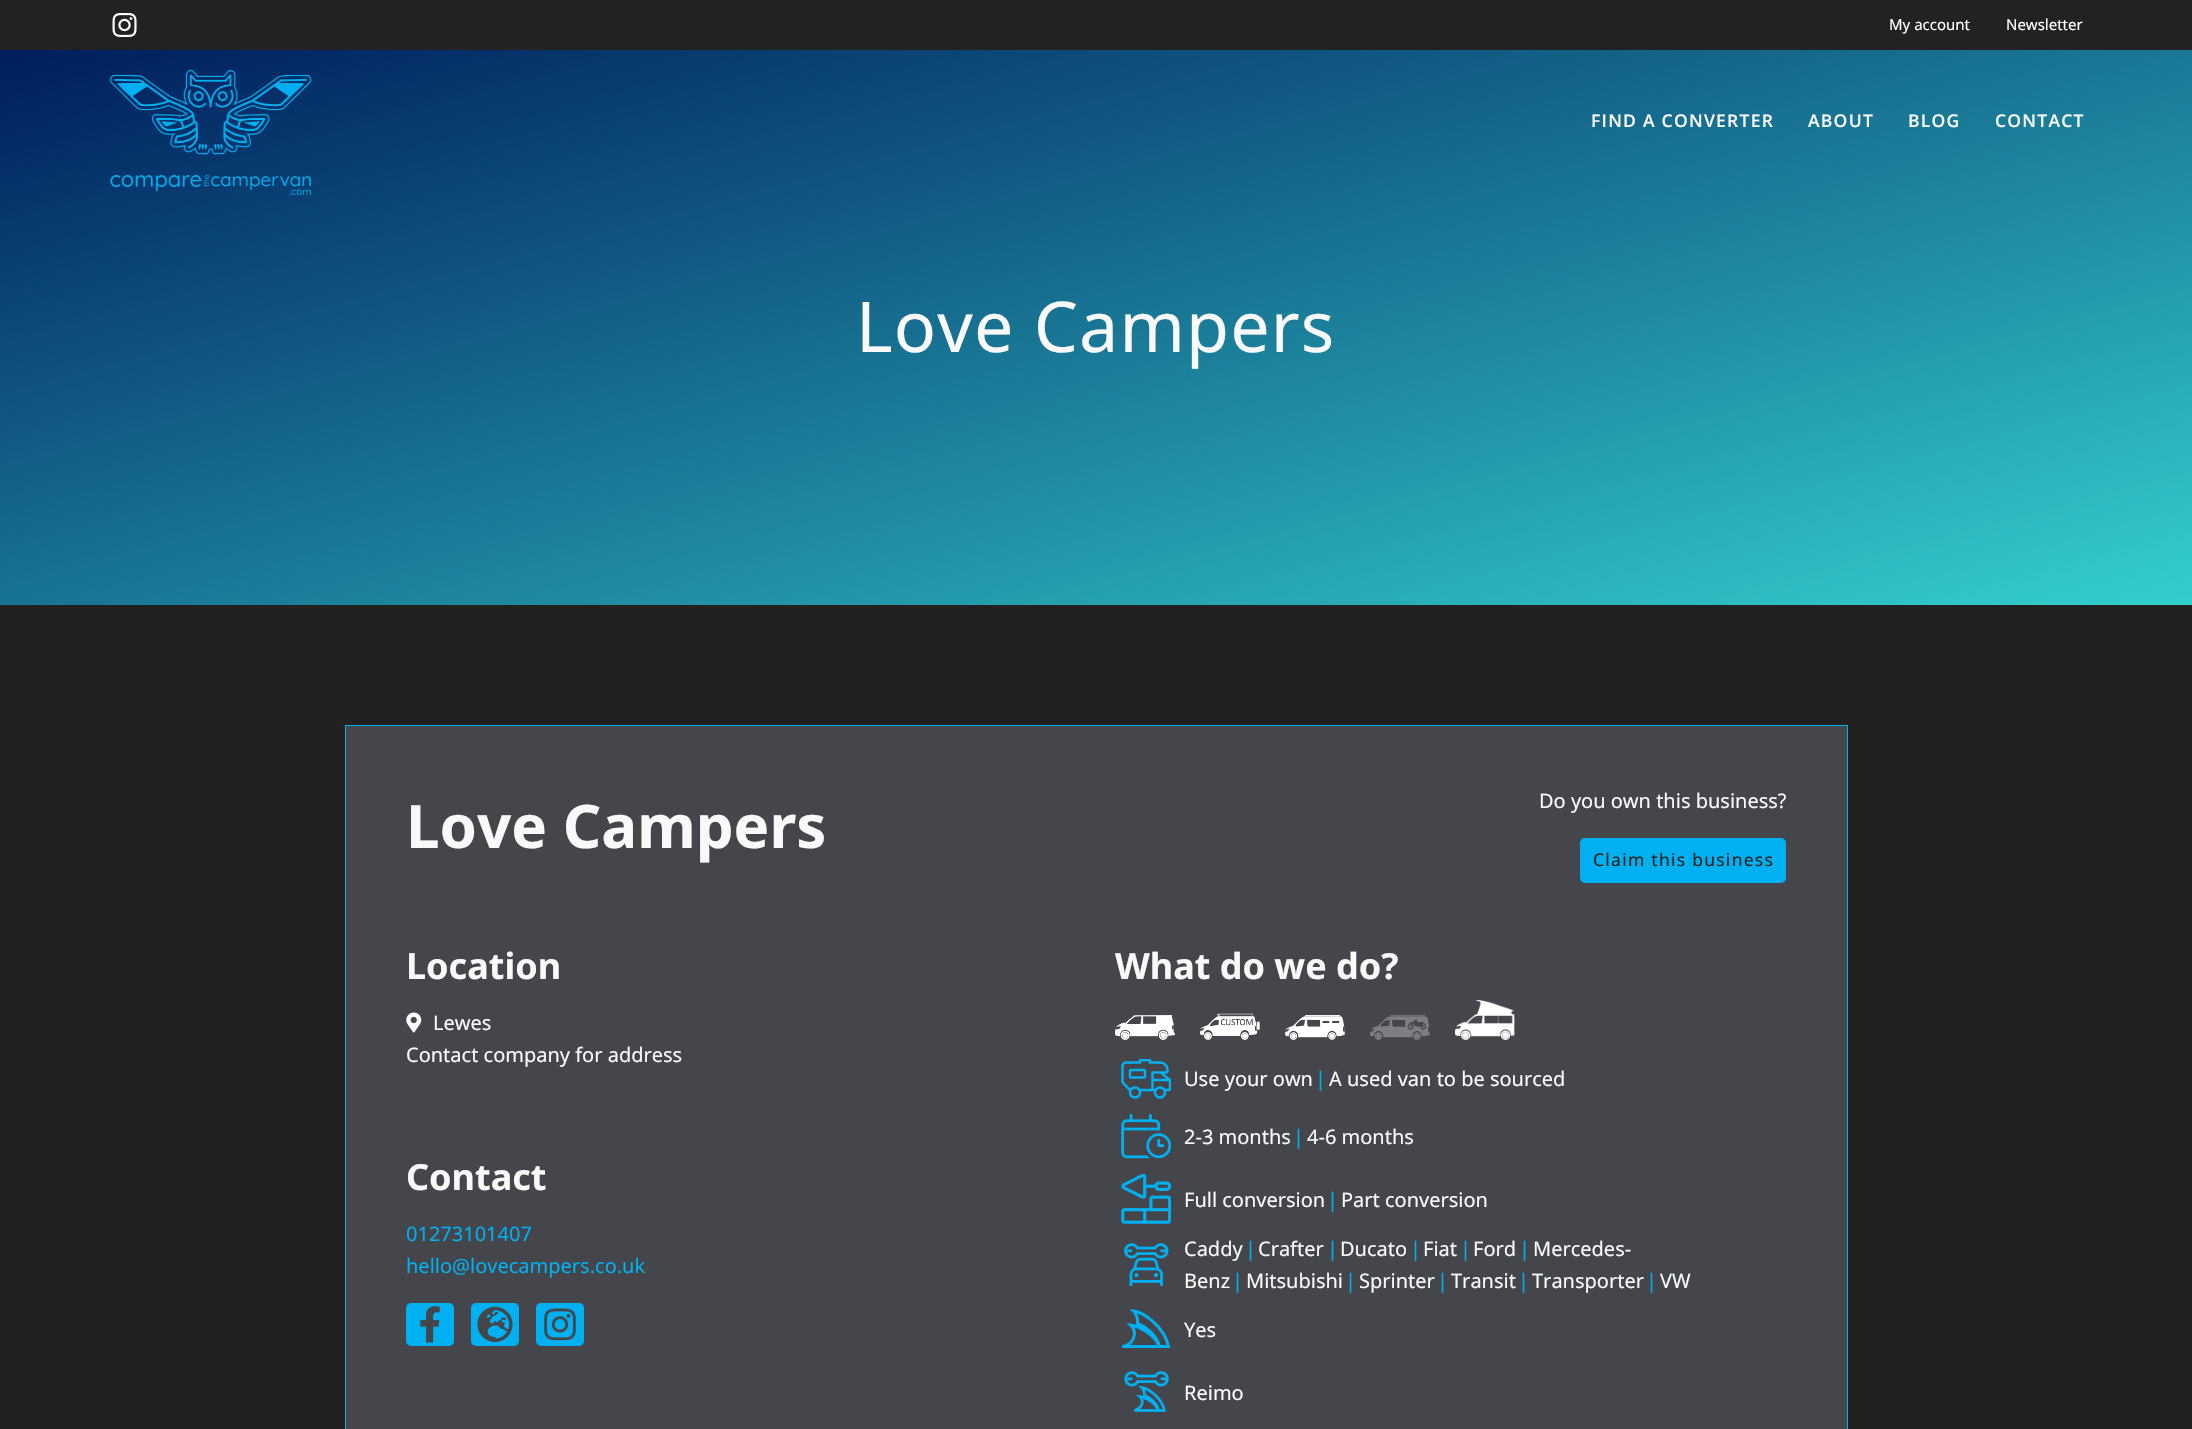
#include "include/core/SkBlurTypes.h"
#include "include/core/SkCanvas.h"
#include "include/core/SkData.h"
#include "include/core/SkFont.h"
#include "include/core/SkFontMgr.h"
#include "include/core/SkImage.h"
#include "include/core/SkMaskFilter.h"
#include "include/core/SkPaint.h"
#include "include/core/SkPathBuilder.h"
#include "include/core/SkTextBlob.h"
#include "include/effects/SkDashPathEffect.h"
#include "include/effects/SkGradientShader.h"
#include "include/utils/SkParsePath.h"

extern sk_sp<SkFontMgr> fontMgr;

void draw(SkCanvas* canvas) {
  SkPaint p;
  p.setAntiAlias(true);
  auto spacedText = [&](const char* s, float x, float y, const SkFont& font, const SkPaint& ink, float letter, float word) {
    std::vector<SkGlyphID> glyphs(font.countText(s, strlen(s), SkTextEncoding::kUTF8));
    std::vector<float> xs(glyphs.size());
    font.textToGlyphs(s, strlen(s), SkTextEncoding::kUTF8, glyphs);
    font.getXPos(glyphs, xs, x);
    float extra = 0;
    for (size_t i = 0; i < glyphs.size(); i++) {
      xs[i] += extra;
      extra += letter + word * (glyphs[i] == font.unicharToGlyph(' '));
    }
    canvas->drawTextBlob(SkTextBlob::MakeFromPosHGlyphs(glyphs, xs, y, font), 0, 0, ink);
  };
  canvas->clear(SK_ColorWHITE);
  p.setColor(SkColorSetRGB(34, 34, 34));
  canvas->drawRect(SkRect::MakeLTRB(0, 0, 2192, 50), p);
  canvas->drawImageRect(SkImages::DeferredFromEncodedData(SkData::MakeFromFileName("images/1.png")), SkRect::MakeLTRB(112, 12, 137, 37), SkSamplingOptions());
  {
    const SkColor colors[] = {SkColorSetRGB(55, 222, 214), SkColorSetRGB(0, 31, 94)};
    const float stops[] = {0, 0.95f};
    const SkPoint ends[] = {{1269, 948}, {947, -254}};
    p.setShader(SkGradientShader::MakeLinear(ends, colors, stops, 2, SkTileMode::kClamp));
    p.setAlpha(255);
  }
  canvas->drawRect(SkRect::MakeLTRB(0, 50, 2192, 605), p);
  canvas->drawImageRect(SkImages::DeferredFromEncodedData(SkData::MakeFromFileName("images/2.png")), SkRect::MakeLTRB(110, 70, 312, 195), SkSamplingOptions());
  p.setShader(nullptr);
  p.setColor(SkColorSetRGB(35, 33, 31));
  canvas->drawRect(SkRect::MakeLTRB(0, 605, 2192, 1429), p);
  p.setColor(SkColorSetRGB(69, 70, 75));
  canvas->drawRect(SkRect::MakeLTRB(345.5f, 725.5f, 1847.5f, 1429.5f), p);
  p.setStyle(SkPaint::kStroke_Style);
  p.setStrokeWidth(1);
  p.setColor(SkColorSetRGB(0, 176, 240));
  canvas->drawRect(SkRect::MakeLTRB(345.5f, 725.5f, 1847.5f, 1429.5f), p);
  p.setStyle(SkPaint::kFill_Style);
  canvas->drawRoundRect(SkRect::MakeLTRB(1581.5f, 839.5f, 1784.5f, 881.5f), 3.5f, 3.5f, p);
  p.setStyle(SkPaint::kStroke_Style);
  p.setStrokeWidth(3);
  canvas->drawRoundRect(SkRect::MakeLTRB(1581.5f, 839.5f, 1784.5f, 881.5f), 3.5f, 3.5f, p);
  canvas->drawImageRect(SkImages::DeferredFromEncodedData(SkData::MakeFromFileName("images/3.png")), SkRect::MakeLTRB(406, 1012, 422, 1033), SkSamplingOptions());
  p.setStyle(SkPaint::kFill_Style);
  canvas->drawRoundRect(SkRect::MakeLTRB(406, 1303, 454, 1346), 5, 5, p);
  canvas->drawImageRect(SkImages::DeferredFromEncodedData(SkData::MakeFromFileName("images/4.png")), SkRect::MakeLTRB(420, 1306, 440, 1343), SkSamplingOptions());
  canvas->drawRoundRect(SkRect::MakeLTRB(471, 1303, 519, 1346), 5, 5, p);
  canvas->drawImageRect(SkImages::DeferredFromEncodedData(SkData::MakeFromFileName("images/5.png")), SkRect::MakeLTRB(477, 1306, 513, 1342), SkSamplingOptions());
  canvas->drawRoundRect(SkRect::MakeLTRB(536, 1303, 584, 1346), 5, 5, p);
  canvas->drawImageRect(SkImages::DeferredFromEncodedData(SkData::MakeFromFileName("images/6.png")), SkRect::MakeLTRB(544, 1308, 576, 1341), SkSamplingOptions());
  canvas->drawImageRect(SkImages::DeferredFromEncodedData(SkData::MakeFromFileName("images/7.png")), SkRect::MakeLTRB(1115, 1015, 1175, 1040), SkSamplingOptions());
  canvas->drawImageRect(SkImages::DeferredFromEncodedData(SkData::MakeFromFileName("images/8.png")), SkRect::MakeLTRB(1200, 1013, 1260, 1040), SkSamplingOptions());
  canvas->drawImageRect(SkImages::DeferredFromEncodedData(SkData::MakeFromFileName("images/9.png")), SkRect::MakeLTRB(1285, 1015, 1345, 1040), SkSamplingOptions());
  canvas->drawImageRect(SkImages::DeferredFromEncodedData(SkData::MakeFromFileName("images/10.png")), SkRect::MakeLTRB(1370, 1015, 1430, 1040), SkSamplingOptions());
  canvas->drawImageRect(SkImages::DeferredFromEncodedData(SkData::MakeFromFileName("images/11.png")), SkRect::MakeLTRB(1455, 1000, 1515, 1040), SkSamplingOptions());
  canvas->drawImageRect(SkImages::DeferredFromEncodedData(SkData::MakeFromFileName("images/12.png")), SkRect::MakeLTRB(1121, 1059, 1171, 1099), SkSamplingOptions());
  canvas->drawImageRect(SkImages::DeferredFromEncodedData(SkData::MakeFromFileName("images/13.png")), SkRect::MakeLTRB(1121, 1114, 1171, 1159), SkSamplingOptions());
  canvas->drawImageRect(SkImages::DeferredFromEncodedData(SkData::MakeFromFileName("images/14.png")), SkRect::MakeLTRB(1121, 1174, 1171, 1224), SkSamplingOptions());
  canvas->drawImageRect(SkImages::DeferredFromEncodedData(SkData::MakeFromFileName("images/15.png")), SkRect::MakeLTRB(1124, 1243, 1169, 1286), SkSamplingOptions());
  p.setStyle(SkPaint::kStroke_Style);
  canvas->drawPath(SkPathBuilder().moveTo(1130.5f, 1325).cubicTo(1138, 1326, 1156, 1334.5f, 1159, 1346.5f).lineTo(1122, 1346.5f).cubicTo(1131.5f, 1346, 1139.5f, 1334, 1130.5f, 1325).close().moveTo(1133.5f, 1311).cubicTo(1136.5f, 1314, 1138, 1318.5f, 1137.5f, 1323.5f).cubicTo(1145.5f, 1326.5f, 1157, 1335, 1159.5f, 1346.5f).lineTo(1168.5f, 1346.5f).cubicTo(1164.5f, 1326.5f, 1143, 1312, 1133.5f, 1311).close().detach(), p);
  canvas->drawImageRect(SkImages::DeferredFromEncodedData(SkData::MakeFromFileName("images/16.png")), SkRect::MakeLTRB(1124, 1371, 1169, 1412), SkSamplingOptions());
  SkFont font1(fontMgr->matchFamilyStyle("Noto Sans", SkFontStyle::Normal()), 15);
  font1.setSubpixel(true);
  p.setStyle(SkPaint::kFill_Style);
  p.setColor(SK_ColorWHITE);
  canvas->drawString("My account", 1889, 30, font1, p);
  canvas->drawString("Newsletter", 2006, 30, font1, p);
  SkFont font2(fontMgr->matchFamilyStyle("Open Sans", SkFontStyle(600, SkFontStyle::kNormal_Width, SkFontStyle::kUpright_Slant)), 17.5f);
  font2.setSubpixel(true);
  p.setColor(SkColorSetRGB(249, 249, 249));
  spacedText("FIND A CONVERTER", 1591, 127, font2, p, 1.25f, 0);
  spacedText("ABOUT", 1808, 127, font2, p, 1.25f, 0);
  spacedText("BLOG", 1908, 127, font2, p, 1.25f, 0);
  spacedText("CONTACT", 1995, 127, font2, p, 1.25f, 0);
  SkFont font3(fontMgr->matchFamilyStyle("Noto Sans", SkFontStyle::Normal()), 70);
  font3.setSubpixel(true);
  spacedText("Love Campers", 856, 352, font3, p, 1.1f, 0);
  SkFont font4(fontMgr->matchFamilyStyle("Noto Sans", SkFontStyle::Bold()), 60);
  font4.setSubpixel(true);
  canvas->drawString("Love Campers", 406, 848, font4, p);
  SkFont font5(fontMgr->matchFamilyStyle("Noto Sans", SkFontStyle::Normal()), 20);
  font5.setSubpixel(true);
  canvas->drawString("Do you own this business?", 1539, 808, font5, p);
  SkFont font6(fontMgr->matchFamilyStyle("Noto Sans", SkFontStyle::Normal()), 17.5f);
  font6.setSubpixel(true);
  p.setColor(SkColorSetRGB(35, 33, 31));
  spacedText("Claim this business", 1593, 866, font6, p, 1.25f, 0);
  SkFont font7(fontMgr->matchFamilyStyle("Noto Sans", SkFontStyle::Bold()), 36);
  font7.setSubpixel(true);
  p.setColor(SkColorSetRGB(249, 249, 249));
  canvas->drawString("Location", 406, 979, font7, p);
  canvas->drawString("Lewes", 433, 1030, font5, p);
  canvas->drawString("Contact company for address", 406, 1062, font5, p);
  canvas->drawString("Contact", 406, 1190, font7, p);
  p.setColor(SkColorSetRGB(0, 176, 240));
  canvas->drawString("01273101407", 406, 1241, font5, p);
  canvas->drawString("hello@lovecampers.co.uk", 406, 1273, font5, p);
  p.setColor(SkColorSetRGB(249, 249, 249));
  canvas->drawString("What do we do?", 1115, 979, font7, p);
  canvas->drawString("Use your own", 1184, 1086, font5, p);
  p.setColor(SkColorSetRGB(0, 176, 240));
  canvas->drawString("|", 1315, 1086, font5, p);
  p.setColor(SkColorSetRGB(249, 249, 249));
  canvas->drawString("A used van to be sourced", 1329, 1086, font5, p);
  canvas->drawString("2-3 months", 1184, 1144, font5, p);
  p.setColor(SkColorSetRGB(0, 176, 240));
  canvas->drawString("|", 1293, 1144, font5, p);
  p.setColor(SkColorSetRGB(249, 249, 249));
  canvas->drawString("4-6 months", 1307, 1144, font5, p);
  canvas->drawString("Full conversion", 1184, 1207, font5, p);
  p.setColor(SkColorSetRGB(0, 176, 240));
  canvas->drawString("|", 1327, 1207, font5, p);
  p.setColor(SkColorSetRGB(249, 249, 249));
  canvas->drawString("Part conversion", 1341, 1207, font5, p);
  canvas->drawString("Caddy", 1184, 1256, font5, p);
  p.setColor(SkColorSetRGB(0, 176, 240));
  canvas->drawString("|", 1245, 1256, font5, p);
  p.setColor(SkColorSetRGB(249, 249, 249));
  canvas->drawString("Crafter", 1258, 1256, font5, p);
  p.setColor(SkColorSetRGB(0, 176, 240));
  canvas->drawString("|", 1327, 1256, font5, p);
  p.setColor(SkColorSetRGB(249, 249, 249));
  canvas->drawString("Ducato", 1340, 1256, font5, p);
  p.setColor(SkColorSetRGB(0, 176, 240));
  canvas->drawString("|", 1410, 1256, font5, p);
  p.setColor(SkColorSetRGB(249, 249, 249));
  canvas->drawString("Fiat", 1423, 1256, font5, p);
  p.setColor(SkColorSetRGB(0, 176, 240));
  canvas->drawString("|", 1460, 1256, font5, p);
  p.setColor(SkColorSetRGB(249, 249, 249));
  canvas->drawString("Ford", 1473, 1256, font5, p);
  p.setColor(SkColorSetRGB(0, 176, 240));
  canvas->drawString("|", 1519, 1256, font5, p);
  p.setColor(SkColorSetRGB(249, 249, 249));
  canvas->drawString("Mercedes-", 1533, 1256, font5, p);
  canvas->drawString("Benz", 1184, 1288, font5, p);
  p.setColor(SkColorSetRGB(0, 176, 240));
  canvas->drawString("|", 1232, 1288, font5, p);
  p.setColor(SkColorSetRGB(249, 249, 249));
  canvas->drawString("Mitsubishi", 1246, 1288, font5, p);
  p.setColor(SkColorSetRGB(0, 176, 240));
  canvas->drawString("|", 1345, 1288, font5, p);
  p.setColor(SkColorSetRGB(249, 249, 249));
  canvas->drawString("Sprinter", 1359, 1288, font5, p);
  p.setColor(SkColorSetRGB(0, 176, 240));
  canvas->drawString("|", 1437, 1288, font5, p);
  p.setColor(SkColorSetRGB(249, 249, 249));
  canvas->drawString("Transit", 1451, 1288, font5, p);
  p.setColor(SkColorSetRGB(0, 176, 240));
  canvas->drawString("|", 1518, 1288, font5, p);
  p.setColor(SkColorSetRGB(249, 249, 249));
  canvas->drawString("Transporter", 1532, 1288, font5, p);
  p.setColor(SkColorSetRGB(0, 176, 240));
  canvas->drawString("|", 1646, 1288, font5, p);
  p.setColor(SkColorSetRGB(249, 249, 249));
  canvas->drawString("VW", 1660, 1288, font5, p);
  canvas->drawString("Yes", 1184, 1337, font5, p);
  canvas->drawString("Reimo", 1184, 1400, font5, p);
}
